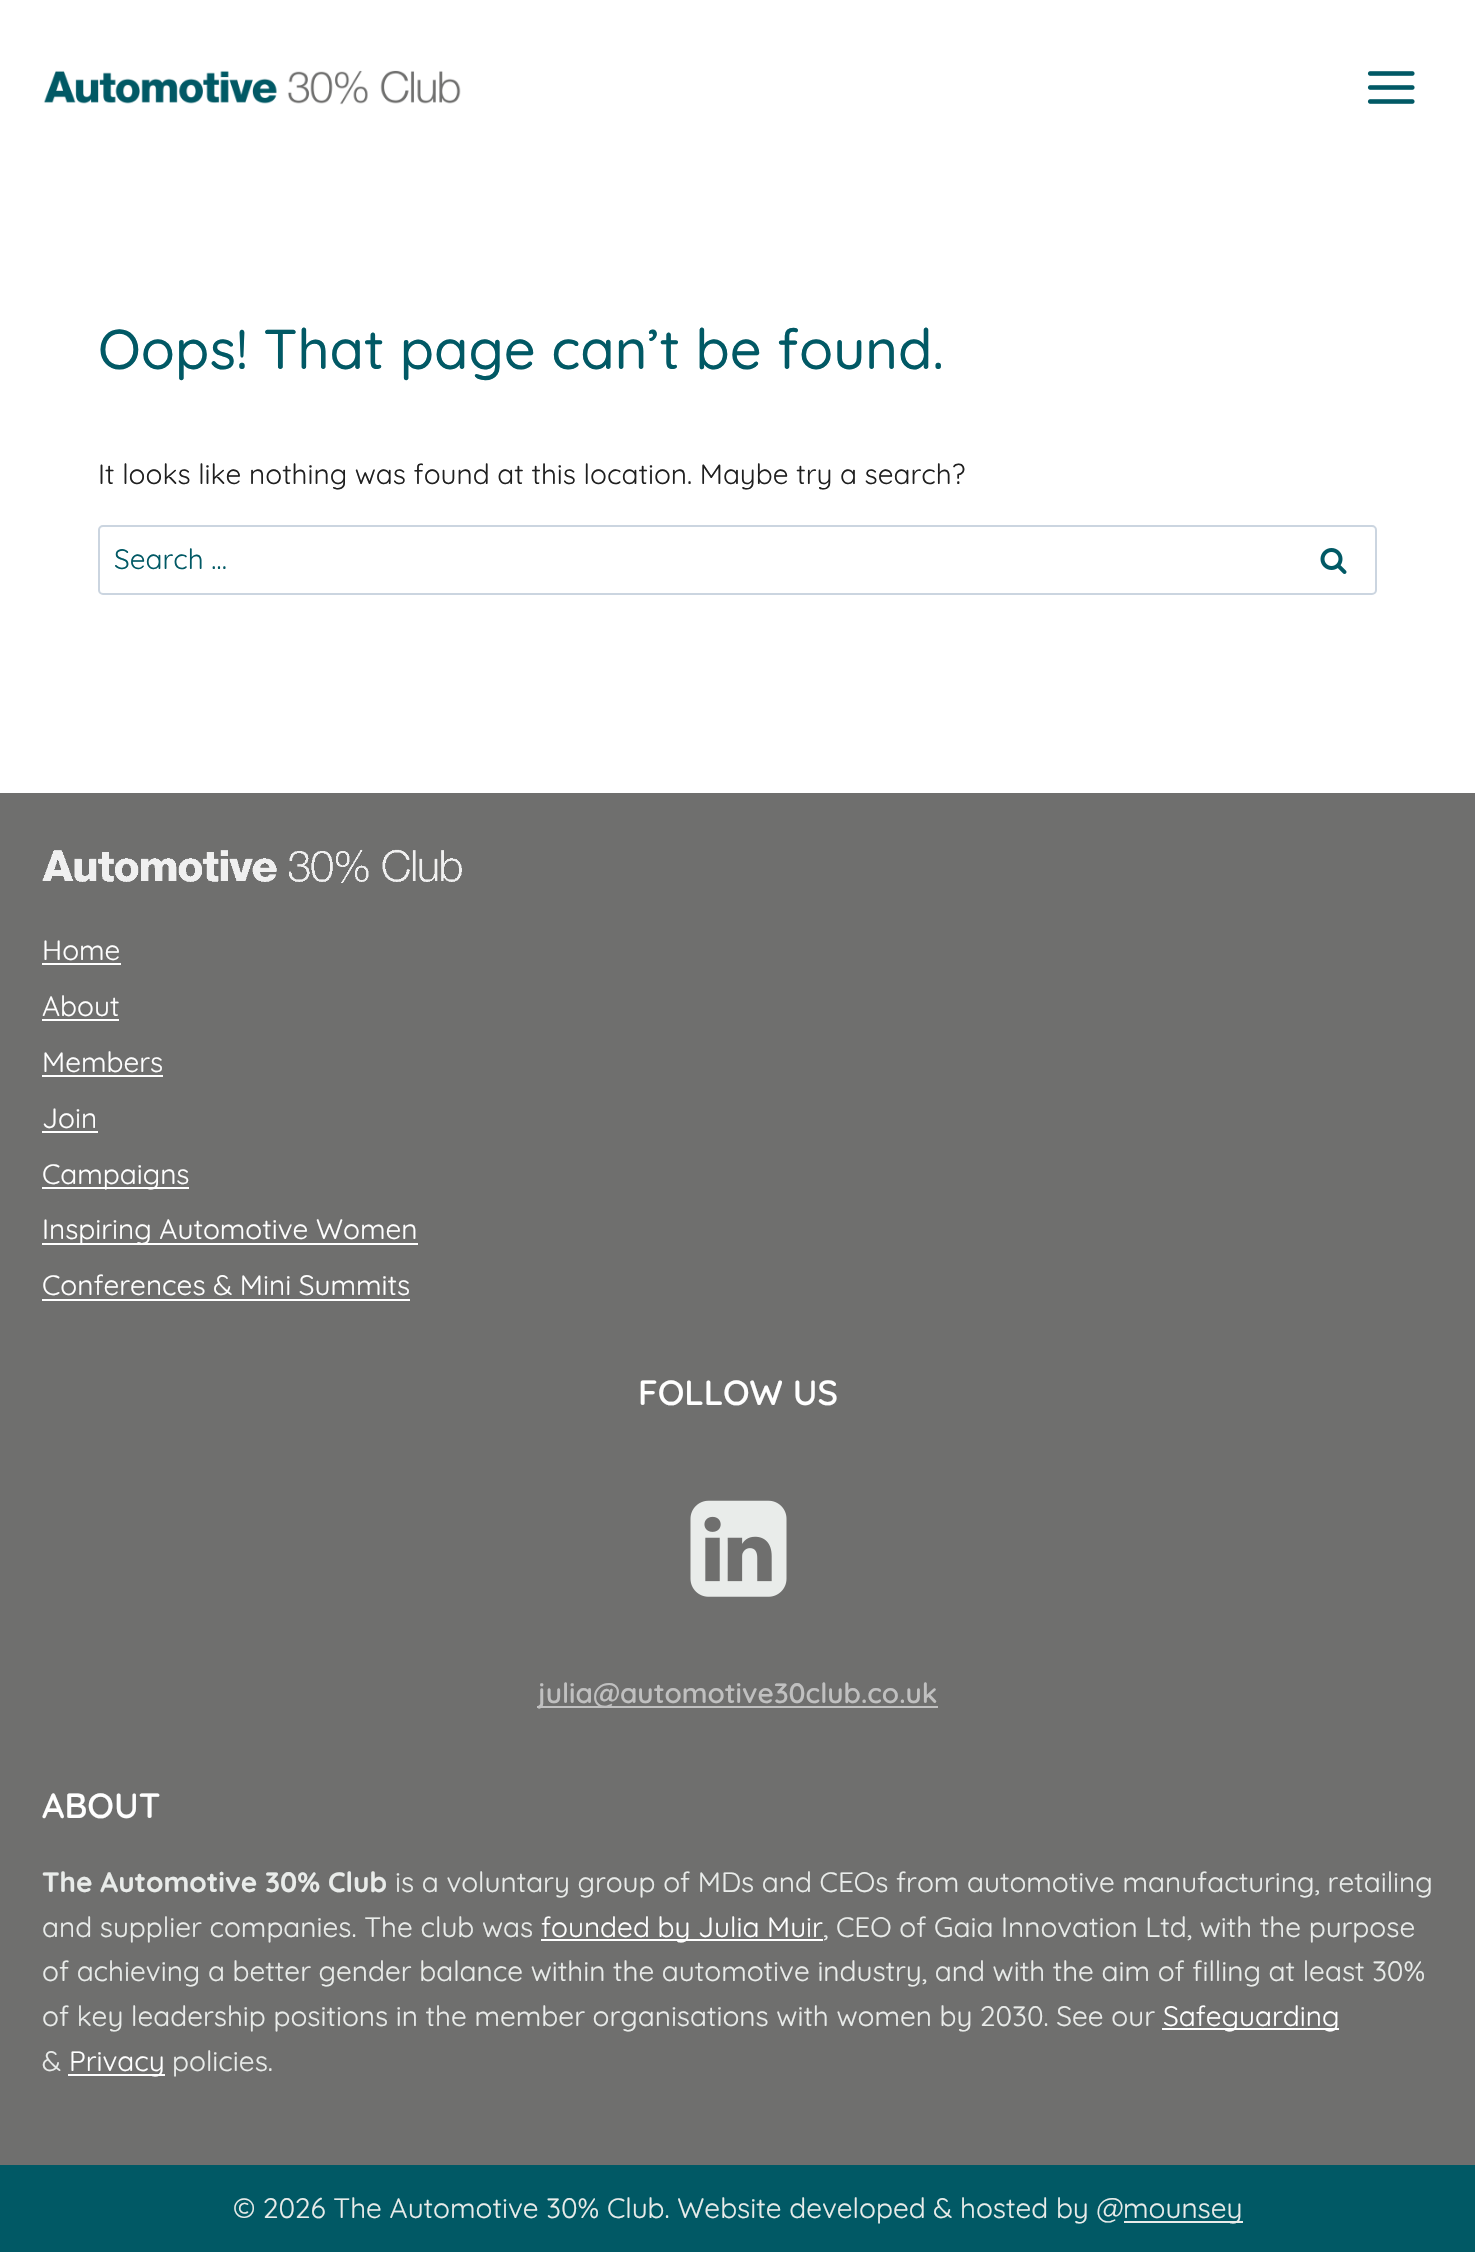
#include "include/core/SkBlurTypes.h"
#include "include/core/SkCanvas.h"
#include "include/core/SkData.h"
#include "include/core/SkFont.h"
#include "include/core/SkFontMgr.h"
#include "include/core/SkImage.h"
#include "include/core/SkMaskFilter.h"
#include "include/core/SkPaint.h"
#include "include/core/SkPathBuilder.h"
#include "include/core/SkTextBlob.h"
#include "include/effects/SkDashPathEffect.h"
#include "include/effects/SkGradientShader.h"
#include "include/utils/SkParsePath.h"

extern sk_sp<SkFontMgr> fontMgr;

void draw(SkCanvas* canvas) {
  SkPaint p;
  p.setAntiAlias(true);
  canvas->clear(SK_ColorWHITE);
  canvas->drawImageRect(SkImages::DeferredFromEncodedData(SkData::MakeFromFileName("images/1.png")), SkRect::MakeLTRB(43, 70, 461, 105), SkSamplingOptions());
  canvas->drawImageRect(SkImages::DeferredFromEncodedData(SkData::MakeFromFileName("images/2.png")), SkRect::MakeLTRB(1367, 71, 1415, 104), SkSamplingOptions());
  p.setStyle(SkPaint::kStroke_Style);
  p.setStrokeWidth(2);
  p.setColor(SkColorSetRGB(203, 213, 224));
  canvas->drawRoundRect(SkRect::MakeLTRB(99, 526, 1376, 594), 4, 4, p);
  canvas->drawImageRect(SkImages::DeferredFromEncodedData(SkData::MakeFromFileName("images/3.png")), SkRect::MakeLTRB(1320, 548, 1347, 574), SkSamplingOptions());
  p.setStyle(SkPaint::kFill_Style);
  p.setColor(SkColorSetRGB(111, 111, 110));
  canvas->drawRect(SkRect::MakeLTRB(0, 793, 1475, 2165), p);
  canvas->drawImageRect(SkImages::DeferredFromEncodedData(SkData::MakeFromFileName("images/4.png")), SkRect::MakeLTRB(42, 849, 462, 883), SkSamplingOptions());
  p.setColor(SK_ColorWHITE);
  canvas->drawRect(SkRect::MakeLTRB(42, 963, 121, 965), p);
  canvas->drawRect(SkRect::MakeLTRB(42, 1019, 119, 1021), p);
  canvas->drawRect(SkRect::MakeLTRB(42, 1075, 163, 1077), p);
  canvas->drawRect(SkRect::MakeLTRB(42, 1131, 98, 1133), p);
  canvas->drawRect(SkRect::MakeLTRB(42, 1187, 189, 1189), p);
  canvas->drawRect(SkRect::MakeLTRB(42, 1243, 418, 1245), p);
  canvas->drawRect(SkRect::MakeLTRB(42, 1299, 410, 1301), p);
  canvas->drawImageRect(SkImages::DeferredFromEncodedData(SkData::MakeFromFileName("images/5.png")), SkRect::MakeLTRB(690, 1500, 787, 1597), SkSamplingOptions());
  p.setColor(SkColorSetRGB(192, 192, 192));
  canvas->drawRect(SkRect::MakeLTRB(537, 1706, 938, 1708), p);
  p.setColor(SK_ColorWHITE);
  canvas->drawRect(SkRect::MakeLTRB(541, 1939, 823, 1941), p);
  canvas->drawRect(SkRect::MakeLTRB(1162, 2028, 1339, 2030), p);
  canvas->drawRect(SkRect::MakeLTRB(68, 2074, 165, 2076), p);
  p.setColor(SkColorSetRGB(1, 89, 101));
  canvas->drawRect(SkRect::MakeLTRB(0, 2165, 1475, 2252), p);
  p.setColor(SkColorSetRGB(233, 236, 234));
  canvas->drawRect(SkRect::MakeLTRB(1124, 2221, 1243, 2223), p);
  SkFont font1(fontMgr->matchFamilyStyle("Quicksand", SkFontStyle(500, SkFontStyle::kNormal_Width, SkFontStyle::kUpright_Slant)), 56);
  font1.setSubpixel(true);
  p.setColor(SkColorSetRGB(1, 89, 101));
  canvas->drawString("Oops! That page can’t be found.", 98, 369, font1, p);
  SkFont font2(fontMgr->matchFamilyStyle("Quicksand", SkFontStyle::Normal()), 28);
  font2.setSubpixel(true);
  p.setColor(SkColorSetRGB(32, 32, 32));
  canvas->drawString("It looks like nothing was found at this location. Maybe try a search?", 98, 484, font2, p);
  p.setColor(SkColorSetRGB(1, 89, 101));
  canvas->drawString("Search …", 114, 569, font2, p);
  p.setColor(SK_ColorWHITE);
  canvas->drawString("Home", 42, 960, font2, p);
  canvas->drawString("About", 42, 1016, font2, p);
  canvas->drawString("Members", 42, 1072, font2, p);
  canvas->drawString("Join", 42, 1128, font2, p);
  canvas->drawString("Campaigns", 42, 1184, font2, p);
  canvas->drawString("Inspiring Automotive Women", 42, 1239, font2, p);
  canvas->drawString("Conferences & Mini Summits", 42, 1295, font2, p);
  SkFont font3(fontMgr->matchFamilyStyle("Quicksand", SkFontStyle(600, SkFontStyle::kNormal_Width, SkFontStyle::kUpright_Slant)), 35);
  font3.setSubpixel(true);
  canvas->drawString("FOLLOW US", 638, 1405, font3, p);
  SkFont font4(fontMgr->matchFamilyStyle("Quicksand", SkFontStyle(600, SkFontStyle::kNormal_Width, SkFontStyle::kUpright_Slant)), 28);
  font4.setSubpixel(true);
  p.setColor(SkColorSetRGB(192, 192, 192));
  canvas->drawString("julia@automotive30club.co.uk", 538, 1703, font4, p);
  p.setColor(SK_ColorWHITE);
  canvas->drawString("ABOUT", 42, 1818, font3, p);
  SkFont font5(fontMgr->matchFamilyStyle("Quicksand", SkFontStyle::Bold()), 28);
  font5.setSubpixel(true);
  p.setColor(SkColorSetRGB(233, 236, 234));
  canvas->drawString("The Automotive 30% Club", 42, 1892, font5, p);
  canvas->drawString("is a voluntary group of MDs and CEOs from automotive manufacturing, retailing", 395, 1892, font2, p);
  canvas->drawString("and supplier companies. The club was", 42, 1937, font2, p);
  p.setColor(SK_ColorWHITE);
  canvas->drawString("founded by Julia Muir", 541, 1937, font2, p);
  p.setColor(SkColorSetRGB(233, 236, 234));
  canvas->drawString(", CEO of Gaia Innovation Ltd, with the purpose", 823, 1937, font2, p);
  canvas->drawString("of achieving a better gender balance within the automotive industry, and with the aim of filling at least 30%", 42, 1981, font2, p);
  canvas->drawString("of key leadership positions in the member organisations with women by 2030. See our", 42, 2026, font2, p);
  p.setColor(SK_ColorWHITE);
  canvas->drawString("Safeguarding", 1163, 2026, font2, p);
  p.setColor(SkColorSetRGB(233, 236, 234));
  canvas->drawString("&", 42, 2071, font2, p);
  p.setColor(SK_ColorWHITE);
  canvas->drawString("Privacy", 69, 2071, font2, p);
  p.setColor(SkColorSetRGB(233, 236, 234));
  canvas->drawString("policies.", 172, 2071, font2, p);
  canvas->drawString("© 2026 The Automotive 30% Club. Website developed & hosted by @", 233, 2218, font2, p);
  canvas->drawString("mounsey", 1123, 2218, font2, p);
}
